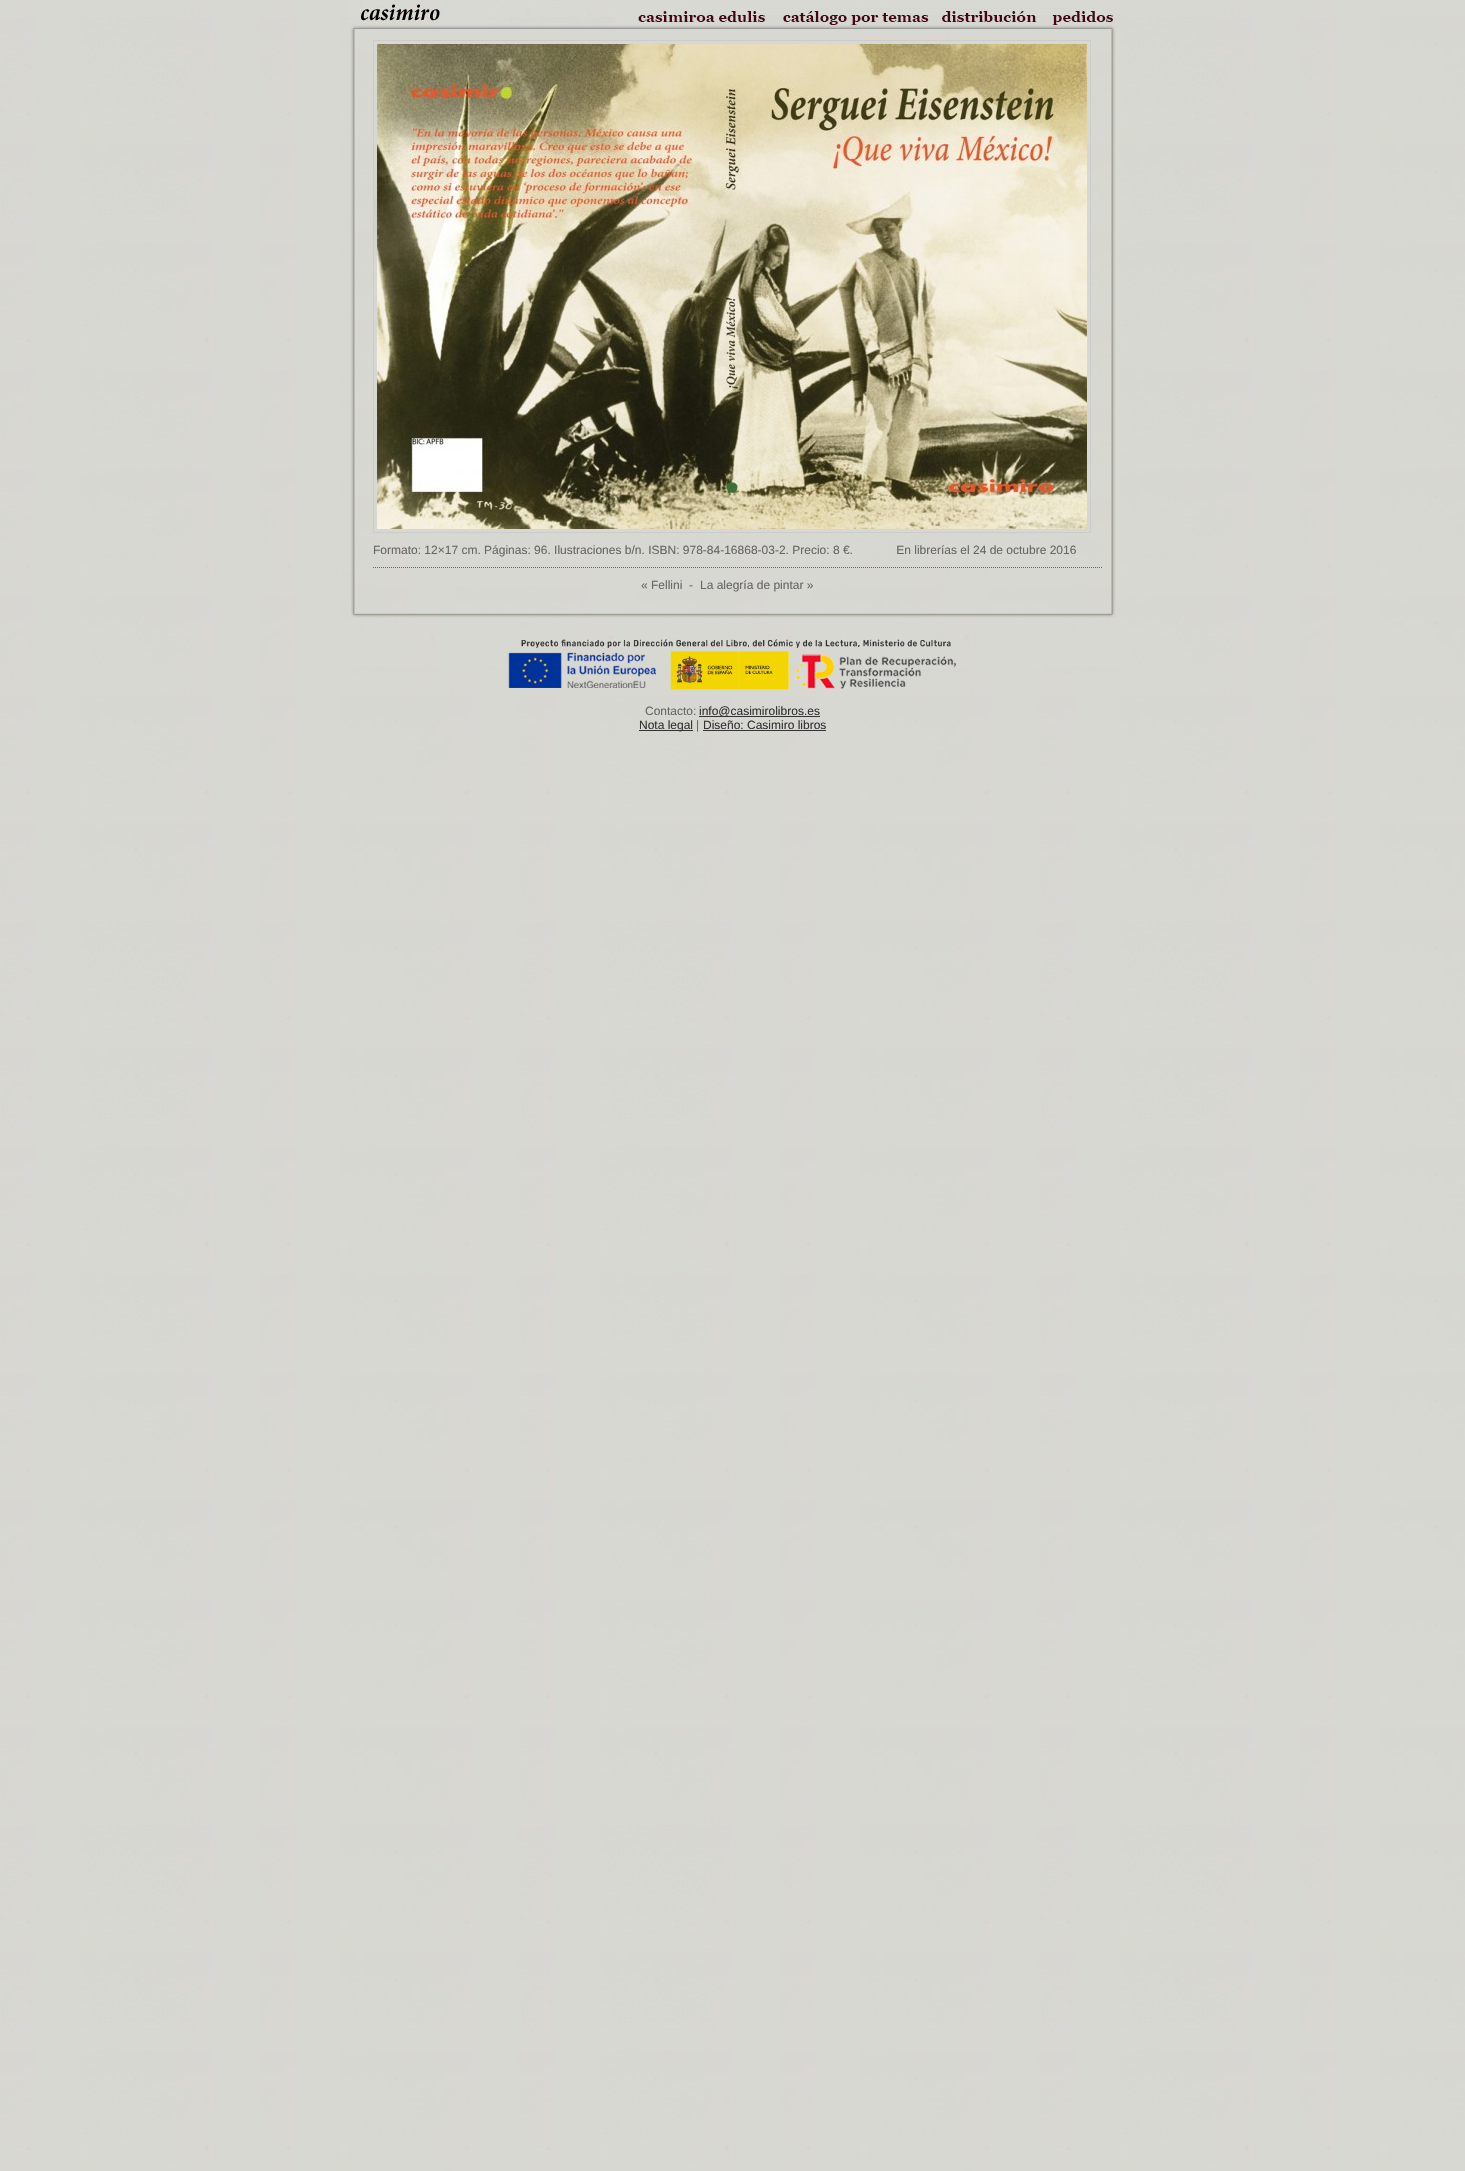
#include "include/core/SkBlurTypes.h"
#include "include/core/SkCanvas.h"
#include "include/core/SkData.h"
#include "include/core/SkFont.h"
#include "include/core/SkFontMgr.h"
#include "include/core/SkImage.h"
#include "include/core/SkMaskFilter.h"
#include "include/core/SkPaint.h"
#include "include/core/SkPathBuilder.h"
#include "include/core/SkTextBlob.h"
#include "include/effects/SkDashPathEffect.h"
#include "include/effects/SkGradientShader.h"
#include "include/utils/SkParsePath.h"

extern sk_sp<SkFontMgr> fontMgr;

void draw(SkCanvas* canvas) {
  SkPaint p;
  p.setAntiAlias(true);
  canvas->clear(SK_ColorWHITE);
  canvas->drawImageRect(SkImages::DeferredFromEncodedData(SkData::MakeFromFileName("images/1.png")), SkRect::MakeLTRB(0, 0, 1465, 2171), SkSamplingOptions());
  canvas->drawImageRect(SkImages::DeferredFromEncodedData(SkData::MakeFromFileName("images/2.png")), SkRect::MakeLTRB(348, 0, 1119, 30), SkSamplingOptions());
  canvas->drawImageRect(SkImages::DeferredFromEncodedData(SkData::MakeFromFileName("images/3.png")), SkRect::MakeLTRB(343, 30, 1116, 602), SkSamplingOptions());
  canvas->drawImageRect(SkImages::DeferredFromEncodedData(SkData::MakeFromFileName("images/4.png")), SkRect::MakeLTRB(374, 56, 377, 314), SkSamplingOptions());
  p.setStyle(SkPaint::kStroke_Style);
  p.setStrokeWidth(1);
  p.setColor(SkColorSetRGB(204, 204, 204));
  canvas->drawRect(SkRect::MakeLTRB(373.5f, 40.5f, 1090.5f, 532.5f), p);
  canvas->drawImageRect(SkImages::DeferredFromEncodedData(SkData::MakeFromFileName("images/5.png")), SkRect::MakeLTRB(377, 44, 1087, 529), SkSamplingOptions());
  p.setColor(SkColorSetRGB(102, 102, 102));
  p.setPathEffect(SkDashPathEffect::Make({{1, 1}}, 0));
  canvas->drawPath(SkPathBuilder().moveTo(373, 567.5f).lineTo(1103, 567.5f).detach(), p);
  p.setPathEffect(nullptr);
  canvas->drawImageRect(SkImages::DeferredFromEncodedData(SkData::MakeFromFileName("images/6.png")), SkRect::MakeLTRB(351, 602, 1119, 673), SkSamplingOptions());
  canvas->drawImageRect(SkImages::DeferredFromEncodedData(SkData::MakeFromFileName("images/7.png")), SkRect::MakeLTRB(508, 639, 956, 690), SkSamplingOptions());
  p.setStyle(SkPaint::kFill_Style);
  p.setColor(SkColorSetRGB(51, 51, 51));
  canvas->drawRect(SkRect::MakeLTRB(699, 716, 820, 717), p);
  canvas->drawRect(SkRect::MakeLTRB(639, 730, 693, 731), p);
  canvas->drawRect(SkRect::MakeLTRB(703, 730, 826, 731), p);
  SkFont font1(fontMgr->matchFamilyStyle("Liberation Sans", SkFontStyle::Normal()), 12);
  font1.setSubpixel(true);
  p.setColor(SkColorSetRGB(102, 102, 102));
  canvas->drawString("Formato: 12×17 cm. Páginas: 96. Ilustraciones b/n. ISBN: 978-84-16868-03-2. Precio: 8 €.             En librerías el 24 de octubre 2016", 373, 554, font1, p);
  canvas->drawString("« Fellini", 641, 589, font1, p);
  canvas->drawString("-", 689, 589, font1, p);
  canvas->drawString("La alegría de pintar »", 700, 589, font1, p);
  canvas->drawString("Contacto:", 645, 715, font1, p);
  p.setColor(SkColorSetRGB(51, 51, 51));
  canvas->drawString("info@casimirolibros.es", 699, 715, font1, p);
  canvas->drawString("Nota legal", 639, 729, font1, p);
  p.setColor(SkColorSetRGB(102, 102, 102));
  canvas->drawString("|", 696, 729, font1, p);
  p.setColor(SkColorSetRGB(51, 51, 51));
  canvas->drawString("Diseño: Casimiro libros", 703, 729, font1, p);
}
